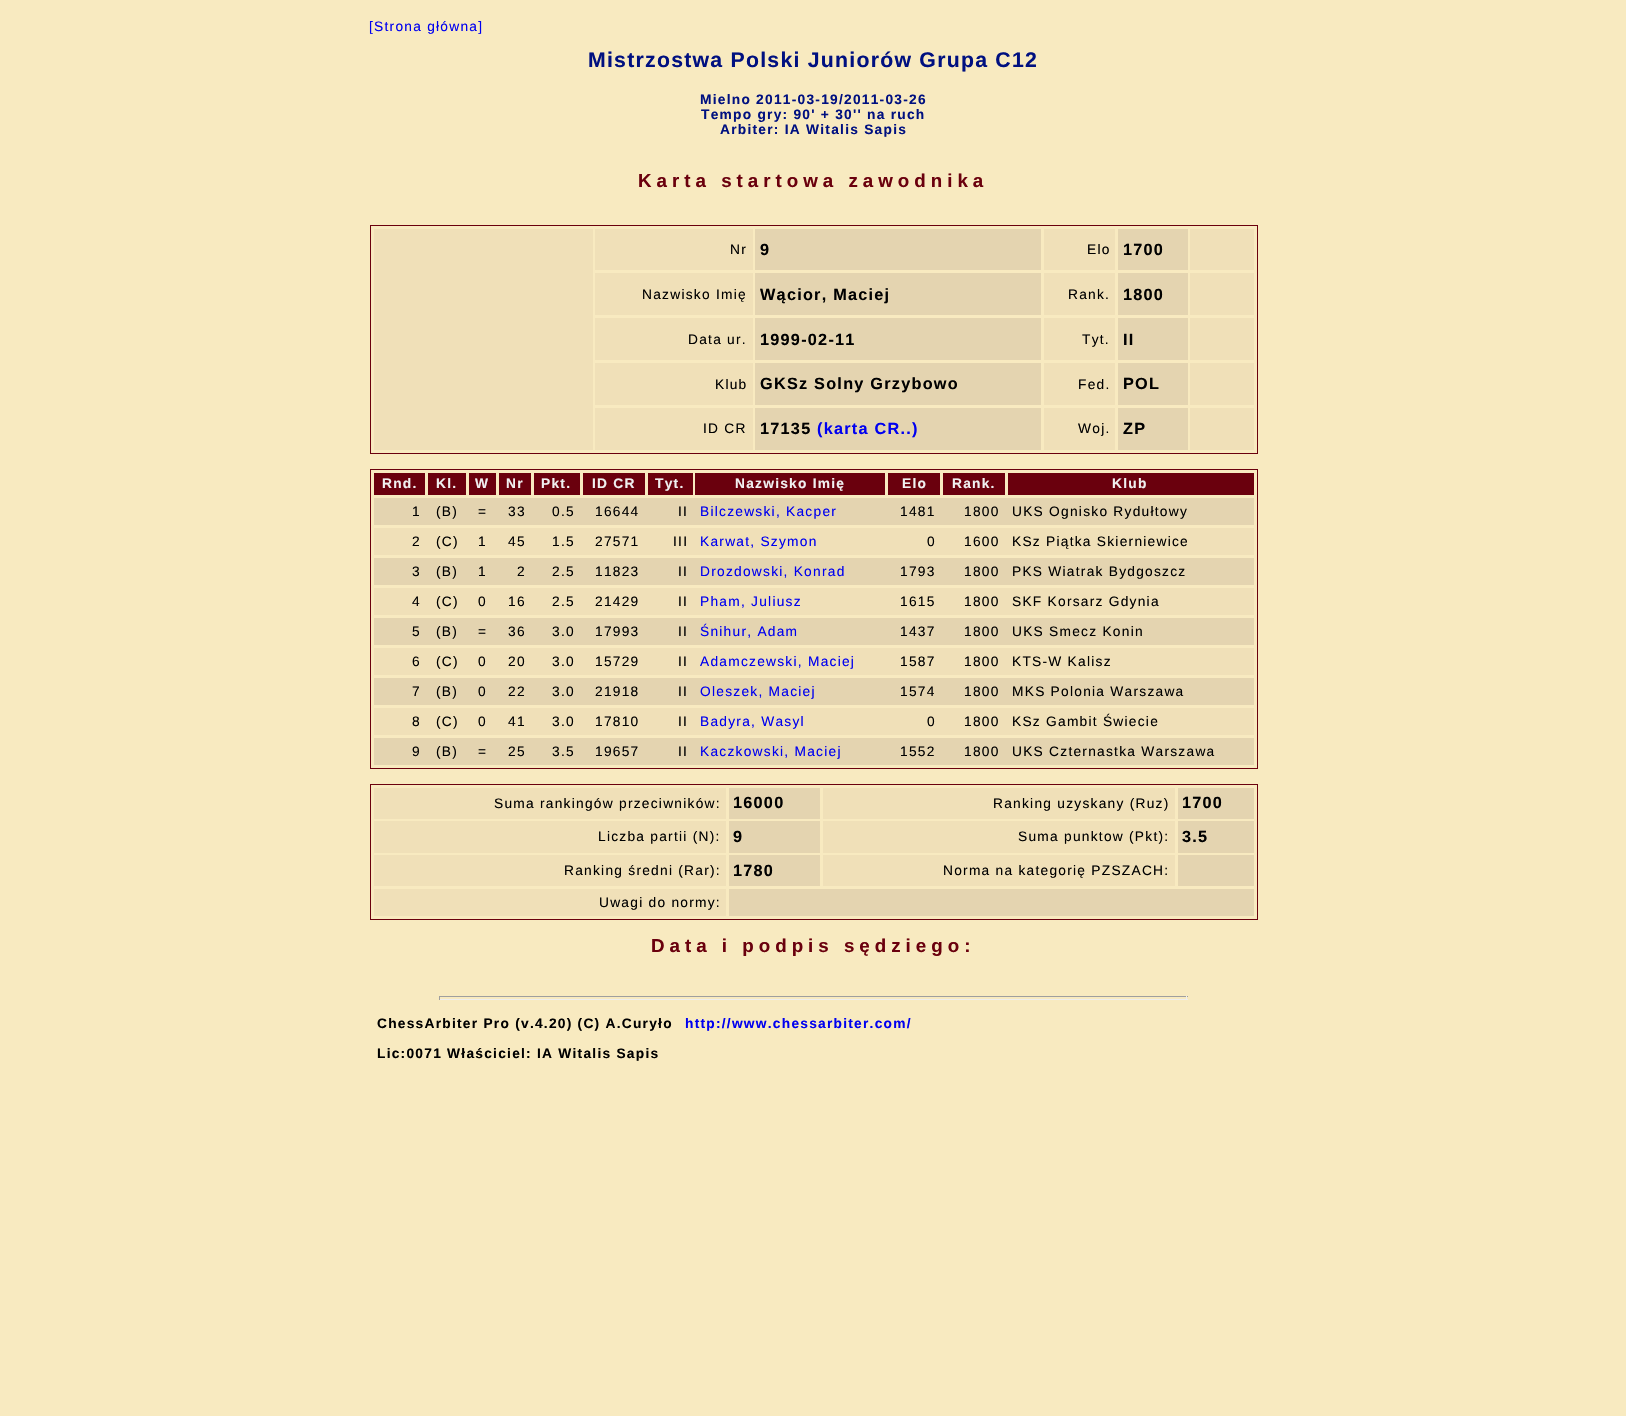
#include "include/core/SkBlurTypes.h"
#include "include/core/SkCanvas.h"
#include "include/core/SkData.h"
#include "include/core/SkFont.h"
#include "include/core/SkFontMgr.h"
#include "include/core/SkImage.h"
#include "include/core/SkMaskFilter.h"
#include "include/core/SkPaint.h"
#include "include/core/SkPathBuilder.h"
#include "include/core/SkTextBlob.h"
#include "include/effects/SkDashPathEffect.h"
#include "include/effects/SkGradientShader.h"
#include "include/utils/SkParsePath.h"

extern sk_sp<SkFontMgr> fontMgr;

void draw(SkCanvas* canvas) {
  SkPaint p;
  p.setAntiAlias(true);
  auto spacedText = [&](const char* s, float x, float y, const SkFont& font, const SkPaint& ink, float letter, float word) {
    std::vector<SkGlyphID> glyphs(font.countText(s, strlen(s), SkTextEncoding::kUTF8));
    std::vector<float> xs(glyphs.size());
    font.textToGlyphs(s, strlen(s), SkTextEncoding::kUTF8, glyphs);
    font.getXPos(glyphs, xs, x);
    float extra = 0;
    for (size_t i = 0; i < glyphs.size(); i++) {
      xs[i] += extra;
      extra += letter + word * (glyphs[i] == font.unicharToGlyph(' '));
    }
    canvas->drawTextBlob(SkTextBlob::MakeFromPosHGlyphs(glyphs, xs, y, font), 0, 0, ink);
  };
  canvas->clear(SkColorSetRGB(248, 234, 192));
  p.setStyle(SkPaint::kStroke_Style);
  p.setStrokeWidth(1);
  p.setColor(SkColorSetRGB(106, 0, 13));
  canvas->drawRect(SkRect::MakeLTRB(370.5f, 225.5f, 1257.5f, 453.5f), p);
  p.setStyle(SkPaint::kFill_Style);
  p.setColor(SkColorSetRGB(240, 224, 184));
  canvas->drawRect(SkRect::MakeLTRB(374, 229, 593, 450), p);
  canvas->drawRect(SkRect::MakeLTRB(595, 229, 753, 270), p);
  p.setColor(SkColorSetRGB(228, 212, 176));
  canvas->drawRect(SkRect::MakeLTRB(755, 229, 1041, 270), p);
  p.setColor(SkColorSetRGB(240, 224, 184));
  canvas->drawRect(SkRect::MakeLTRB(1044, 229, 1115, 270), p);
  p.setColor(SkColorSetRGB(228, 212, 176));
  canvas->drawRect(SkRect::MakeLTRB(1118, 229, 1188, 270), p);
  p.setColor(SkColorSetRGB(240, 224, 184));
  canvas->drawRect(SkRect::MakeLTRB(1190, 229, 1254, 270), p);
  canvas->drawRect(SkRect::MakeLTRB(595, 273, 753, 315), p);
  p.setColor(SkColorSetRGB(228, 212, 176));
  canvas->drawRect(SkRect::MakeLTRB(755, 273, 1041, 315), p);
  p.setColor(SkColorSetRGB(240, 224, 184));
  canvas->drawRect(SkRect::MakeLTRB(1044, 273, 1115, 315), p);
  p.setColor(SkColorSetRGB(228, 212, 176));
  canvas->drawRect(SkRect::MakeLTRB(1118, 273, 1188, 315), p);
  p.setColor(SkColorSetRGB(240, 224, 184));
  canvas->drawRect(SkRect::MakeLTRB(1190, 273, 1254, 315), p);
  canvas->drawRect(SkRect::MakeLTRB(595, 318, 753, 360), p);
  p.setColor(SkColorSetRGB(228, 212, 176));
  canvas->drawRect(SkRect::MakeLTRB(755, 318, 1041, 360), p);
  p.setColor(SkColorSetRGB(240, 224, 184));
  canvas->drawRect(SkRect::MakeLTRB(1044, 318, 1115, 360), p);
  p.setColor(SkColorSetRGB(228, 212, 176));
  canvas->drawRect(SkRect::MakeLTRB(1118, 318, 1188, 360), p);
  p.setColor(SkColorSetRGB(240, 224, 184));
  canvas->drawRect(SkRect::MakeLTRB(1190, 318, 1254, 360), p);
  canvas->drawRect(SkRect::MakeLTRB(595, 363, 753, 405), p);
  p.setColor(SkColorSetRGB(228, 212, 176));
  canvas->drawRect(SkRect::MakeLTRB(755, 363, 1041, 405), p);
  p.setColor(SkColorSetRGB(240, 224, 184));
  canvas->drawRect(SkRect::MakeLTRB(1044, 363, 1115, 405), p);
  p.setColor(SkColorSetRGB(228, 212, 176));
  canvas->drawRect(SkRect::MakeLTRB(1118, 363, 1188, 405), p);
  p.setColor(SkColorSetRGB(240, 224, 184));
  canvas->drawRect(SkRect::MakeLTRB(1190, 363, 1254, 405), p);
  canvas->drawRect(SkRect::MakeLTRB(595, 408, 753, 450), p);
  p.setColor(SkColorSetRGB(228, 212, 176));
  canvas->drawRect(SkRect::MakeLTRB(755, 408, 1041, 450), p);
  p.setColor(SkColorSetRGB(240, 224, 184));
  canvas->drawRect(SkRect::MakeLTRB(1044, 408, 1115, 450), p);
  p.setColor(SkColorSetRGB(228, 212, 176));
  canvas->drawRect(SkRect::MakeLTRB(1118, 408, 1188, 450), p);
  p.setColor(SkColorSetRGB(240, 224, 184));
  canvas->drawRect(SkRect::MakeLTRB(1190, 408, 1254, 450), p);
  p.setStyle(SkPaint::kStroke_Style);
  p.setColor(SkColorSetRGB(106, 0, 13));
  canvas->drawRect(SkRect::MakeLTRB(370.5f, 469.5f, 1257.5f, 768.5f), p);
  p.setStyle(SkPaint::kFill_Style);
  canvas->drawRect(SkRect::MakeLTRB(374, 473, 425, 495), p);
  canvas->drawRect(SkRect::MakeLTRB(428, 473, 466, 495), p);
  canvas->drawRect(SkRect::MakeLTRB(469, 473, 496, 495), p);
  canvas->drawRect(SkRect::MakeLTRB(499, 473, 531, 495), p);
  canvas->drawRect(SkRect::MakeLTRB(534, 473, 580, 495), p);
  canvas->drawRect(SkRect::MakeLTRB(583, 473, 645, 495), p);
  canvas->drawRect(SkRect::MakeLTRB(648, 473, 693, 495), p);
  canvas->drawRect(SkRect::MakeLTRB(695, 473, 885, 495), p);
  canvas->drawRect(SkRect::MakeLTRB(888, 473, 940, 495), p);
  canvas->drawRect(SkRect::MakeLTRB(943, 473, 1005, 495), p);
  canvas->drawRect(SkRect::MakeLTRB(1008, 473, 1254, 495), p);
  p.setColor(SkColorSetRGB(228, 212, 176));
  canvas->drawRect(SkRect::MakeLTRB(374, 498, 1254, 525), p);
  p.setColor(SkColorSetRGB(240, 224, 184));
  canvas->drawRect(SkRect::MakeLTRB(374, 528, 1254, 555), p);
  p.setColor(SkColorSetRGB(228, 212, 176));
  canvas->drawRect(SkRect::MakeLTRB(374, 558, 1254, 585), p);
  p.setColor(SkColorSetRGB(240, 224, 184));
  canvas->drawRect(SkRect::MakeLTRB(374, 588, 1254, 615), p);
  p.setColor(SkColorSetRGB(228, 212, 176));
  canvas->drawRect(SkRect::MakeLTRB(374, 618, 1254, 645), p);
  p.setColor(SkColorSetRGB(240, 224, 184));
  canvas->drawRect(SkRect::MakeLTRB(374, 648, 1254, 675), p);
  p.setColor(SkColorSetRGB(228, 212, 176));
  canvas->drawRect(SkRect::MakeLTRB(374, 678, 1254, 705), p);
  p.setColor(SkColorSetRGB(240, 224, 184));
  canvas->drawRect(SkRect::MakeLTRB(374, 708, 1254, 735), p);
  p.setColor(SkColorSetRGB(228, 212, 176));
  canvas->drawRect(SkRect::MakeLTRB(374, 738, 1254, 765), p);
  p.setStyle(SkPaint::kStroke_Style);
  p.setColor(SkColorSetRGB(106, 0, 13));
  canvas->drawRect(SkRect::MakeLTRB(370.5f, 784.5f, 1257.5f, 919.5f), p);
  p.setStyle(SkPaint::kFill_Style);
  p.setColor(SkColorSetRGB(240, 224, 184));
  canvas->drawRect(SkRect::MakeLTRB(374, 788, 726, 819), p);
  p.setColor(SkColorSetRGB(228, 212, 176));
  canvas->drawRect(SkRect::MakeLTRB(729, 788, 820, 819), p);
  p.setColor(SkColorSetRGB(240, 224, 184));
  canvas->drawRect(SkRect::MakeLTRB(823, 788, 1175, 819), p);
  p.setColor(SkColorSetRGB(228, 212, 176));
  canvas->drawRect(SkRect::MakeLTRB(1178, 788, 1254, 819), p);
  p.setColor(SkColorSetRGB(240, 224, 184));
  canvas->drawRect(SkRect::MakeLTRB(374, 821, 726, 853), p);
  p.setColor(SkColorSetRGB(228, 212, 176));
  canvas->drawRect(SkRect::MakeLTRB(729, 821, 820, 853), p);
  p.setColor(SkColorSetRGB(240, 224, 184));
  canvas->drawRect(SkRect::MakeLTRB(823, 821, 1175, 853), p);
  p.setColor(SkColorSetRGB(228, 212, 176));
  canvas->drawRect(SkRect::MakeLTRB(1178, 821, 1254, 853), p);
  p.setColor(SkColorSetRGB(240, 224, 184));
  canvas->drawRect(SkRect::MakeLTRB(374, 855, 726, 886), p);
  p.setColor(SkColorSetRGB(228, 212, 176));
  canvas->drawRect(SkRect::MakeLTRB(729, 855, 820, 886), p);
  p.setColor(SkColorSetRGB(240, 224, 184));
  canvas->drawRect(SkRect::MakeLTRB(823, 855, 1175, 886), p);
  p.setColor(SkColorSetRGB(228, 212, 176));
  canvas->drawRect(SkRect::MakeLTRB(1178, 855, 1254, 886), p);
  p.setColor(SkColorSetRGB(240, 224, 184));
  canvas->drawRect(SkRect::MakeLTRB(374, 889, 726, 916), p);
  p.setColor(SkColorSetRGB(228, 212, 176));
  canvas->drawRect(SkRect::MakeLTRB(729, 889, 1254, 916), p);
  p.setColor(SkColorSetRGB(159, 159, 159));
  canvas->drawRect(SkRect::MakeLTRB(439, 996, 1188, 997), p);
  p.setColor(SkColorSetRGB(238, 238, 238));
  canvas->drawRect(SkRect::MakeLTRB(1186, 996, 1187, 1000), p);
  canvas->drawRect(SkRect::MakeLTRB(439, 999, 1188, 1000), p);
  p.setColor(SkColorSetRGB(159, 159, 159));
  canvas->drawRect(SkRect::MakeLTRB(439, 996, 440, 1000), p);
  SkFont font1(fontMgr->matchFamilyStyle("Liberation Sans", SkFontStyle::Normal()), 13.75f);
  font1.setSubpixel(true);
  p.setColor(SkColorSetRGB(0, 0, 240));
  spacedText("[Strona główna]", 369, 31, font1, p, 1.25f, 0);
  SkFont font2(fontMgr->matchFamilyStyle("Liberation Sans", SkFontStyle::Bold()), 21.25f);
  font2.setSubpixel(true);
  p.setColor(SkColorSetRGB(0, 16, 128));
  spacedText("Mistrzostwa Polski Juniorów Grupa C12", 588, 67, font2, p, 1.25f, 0);
  SkFont font3(fontMgr->matchFamilyStyle("Liberation Sans", SkFontStyle::Bold()), 13.75f);
  font3.setSubpixel(true);
  spacedText("Mielno 2011-03-19/2011-03-26", 700, 104, font3, p, 1.25f, 0);
  spacedText("Tempo gry: 90' + 30'' na ruch", 701, 119, font3, p, 1.25f, 0);
  spacedText("Arbiter: IA Witalis Sapis", 720, 134, font3, p, 1.25f, 0);
  SkFont font4(fontMgr->matchFamilyStyle("Liberation Sans", SkFontStyle::Bold()), 18.75f);
  font4.setSubpixel(true);
  p.setColor(SkColorSetRGB(106, 0, 13));
  spacedText("Karta startowa zawodnika", 638, 187, font4, p, 5, 0);
  p.setColor(SK_ColorBLACK);
  spacedText("Nr", 730, 254, font1, p, 1.25f, 0);
  SkFont font5(fontMgr->matchFamilyStyle("Liberation Sans", SkFontStyle::Bold()), 16.25f);
  font5.setSubpixel(true);
  spacedText("9", 760, 255, font5, p, 1.25f, 0);
  spacedText("Elo", 1087, 254, font1, p, 1.25f, 0);
  spacedText("1700", 1123, 255, font5, p, 1.25f, 0);
  spacedText("Nazwisko Imię", 642, 299, font1, p, 1.25f, 0);
  spacedText("Wącior, Maciej", 760, 300, font5, p, 1.25f, 0);
  spacedText("Rank.", 1068, 299, font1, p, 1.25f, 0);
  spacedText("1800", 1123, 300, font5, p, 1.25f, 0);
  spacedText("Data ur.", 688, 344, font1, p, 1.25f, 0);
  spacedText("1999-02-11", 760, 345, font5, p, 1.25f, 0);
  spacedText("Tyt.", 1082, 344, font1, p, 1.25f, 0);
  spacedText("II", 1123, 345, font5, p, 1.25f, 0);
  spacedText("Klub", 715, 389, font1, p, 1.25f, 0);
  spacedText("GKSz Solny Grzybowo", 760, 389, font5, p, 1.25f, 0);
  spacedText("Fed.", 1078, 389, font1, p, 1.25f, 0);
  spacedText("POL", 1123, 389, font5, p, 1.25f, 0);
  spacedText("ID CR", 703, 433, font1, p, 1.25f, 0);
  spacedText("17135", 760, 434, font5, p, 1.25f, 0);
  p.setColor(SkColorSetRGB(0, 0, 240));
  spacedText("(karta CR..)", 817, 434, font5, p, 1.25f, 0);
  p.setColor(SK_ColorBLACK);
  spacedText("Woj.", 1078, 433, font1, p, 1.25f, 0);
  spacedText("ZP", 1123, 434, font5, p, 1.25f, 0);
  p.setColor(SkColorSetRGB(240, 240, 240));
  spacedText("Rnd.", 382, 488, font3, p, 1.25f, 0);
  spacedText("Kl.", 436, 488, font3, p, 1.25f, 0);
  spacedText("W", 475, 488, font3, p, 1.25f, 0);
  spacedText("Nr", 506, 488, font3, p, 1.25f, 0);
  spacedText("Pkt.", 541, 488, font3, p, 1.25f, 0);
  spacedText("ID CR", 592, 488, font3, p, 1.25f, 0);
  spacedText("Tyt.", 655, 488, font3, p, 1.25f, 0);
  spacedText("Nazwisko Imię", 735, 488, font3, p, 1.25f, 0);
  spacedText("Elo", 902, 488, font3, p, 1.25f, 0);
  spacedText("Rank.", 952, 488, font3, p, 1.25f, 0);
  spacedText("Klub", 1112, 488, font3, p, 1.25f, 0);
  p.setColor(SK_ColorBLACK);
  spacedText("1", 412, 516, font1, p, 1.25f, 0);
  spacedText("(B)", 436, 516, font1, p, 1.25f, 0);
  spacedText("=", 478, 516, font1, p, 1.25f, 0);
  spacedText("33", 508, 516, font1, p, 1.25f, 0);
  spacedText("0.5", 552, 516, font1, p, 1.25f, 0);
  spacedText("16644", 595, 516, font1, p, 1.25f, 0);
  spacedText("II", 678, 516, font1, p, 1.25f, 0);
  p.setColor(SkColorSetRGB(0, 0, 240));
  spacedText("Bilczewski, Kacper", 700, 516, font1, p, 1.25f, 0);
  p.setColor(SK_ColorBLACK);
  spacedText("1481", 900, 516, font1, p, 1.25f, 0);
  spacedText("1800", 964, 516, font1, p, 1.25f, 0);
  spacedText("UKS Ognisko Rydułtowy", 1012, 516, font1, p, 1.25f, 0);
  spacedText("2", 412, 546, font1, p, 1.25f, 0);
  spacedText("(C)", 436, 546, font1, p, 1.25f, 0);
  spacedText("1", 478, 546, font1, p, 1.25f, 0);
  spacedText("45", 508, 546, font1, p, 1.25f, 0);
  spacedText("1.5", 552, 546, font1, p, 1.25f, 0);
  spacedText("27571", 595, 546, font1, p, 1.25f, 0);
  spacedText("III", 673, 546, font1, p, 1.25f, 0);
  p.setColor(SkColorSetRGB(0, 0, 240));
  spacedText("Karwat, Szymon", 700, 546, font1, p, 1.25f, 0);
  p.setColor(SK_ColorBLACK);
  spacedText("0", 927, 546, font1, p, 1.25f, 0);
  spacedText("1600", 964, 546, font1, p, 1.25f, 0);
  spacedText("KSz Piątka Skierniewice", 1012, 546, font1, p, 1.25f, 0);
  spacedText("3", 412, 576, font1, p, 1.25f, 0);
  spacedText("(B)", 436, 576, font1, p, 1.25f, 0);
  spacedText("1", 478, 576, font1, p, 1.25f, 0);
  spacedText("2", 517, 576, font1, p, 1.25f, 0);
  spacedText("2.5", 552, 576, font1, p, 1.25f, 0);
  spacedText("11823", 595, 576, font1, p, 1.25f, 0);
  spacedText("II", 678, 576, font1, p, 1.25f, 0);
  p.setColor(SkColorSetRGB(0, 0, 240));
  spacedText("Drozdowski, Konrad", 700, 576, font1, p, 1.25f, 0);
  p.setColor(SK_ColorBLACK);
  spacedText("1793", 900, 576, font1, p, 1.25f, 0);
  spacedText("1800", 964, 576, font1, p, 1.25f, 0);
  spacedText("PKS Wiatrak Bydgoszcz", 1012, 576, font1, p, 1.25f, 0);
  spacedText("4", 412, 606, font1, p, 1.25f, 0);
  spacedText("(C)", 436, 606, font1, p, 1.25f, 0);
  spacedText("0", 478, 606, font1, p, 1.25f, 0);
  spacedText("16", 508, 606, font1, p, 1.25f, 0);
  spacedText("2.5", 552, 606, font1, p, 1.25f, 0);
  spacedText("21429", 595, 606, font1, p, 1.25f, 0);
  spacedText("II", 678, 606, font1, p, 1.25f, 0);
  p.setColor(SkColorSetRGB(0, 0, 240));
  spacedText("Pham, Juliusz", 700, 606, font1, p, 1.25f, 0);
  p.setColor(SK_ColorBLACK);
  spacedText("1615", 900, 606, font1, p, 1.25f, 0);
  spacedText("1800", 964, 606, font1, p, 1.25f, 0);
  spacedText("SKF Korsarz Gdynia", 1012, 606, font1, p, 1.25f, 0);
  spacedText("5", 412, 636, font1, p, 1.25f, 0);
  spacedText("(B)", 436, 636, font1, p, 1.25f, 0);
  spacedText("=", 478, 636, font1, p, 1.25f, 0);
  spacedText("36", 508, 636, font1, p, 1.25f, 0);
  spacedText("3.0", 552, 636, font1, p, 1.25f, 0);
  spacedText("17993", 595, 636, font1, p, 1.25f, 0);
  spacedText("II", 678, 636, font1, p, 1.25f, 0);
  p.setColor(SkColorSetRGB(0, 0, 240));
  spacedText("Śnihur, Adam", 700, 636, font1, p, 1.25f, 0);
  p.setColor(SK_ColorBLACK);
  spacedText("1437", 900, 636, font1, p, 1.25f, 0);
  spacedText("1800", 964, 636, font1, p, 1.25f, 0);
  spacedText("UKS Smecz Konin", 1012, 636, font1, p, 1.25f, 0);
  spacedText("6", 412, 666, font1, p, 1.25f, 0);
  spacedText("(C)", 436, 666, font1, p, 1.25f, 0);
  spacedText("0", 478, 666, font1, p, 1.25f, 0);
  spacedText("20", 508, 666, font1, p, 1.25f, 0);
  spacedText("3.0", 552, 666, font1, p, 1.25f, 0);
  spacedText("15729", 595, 666, font1, p, 1.25f, 0);
  spacedText("II", 678, 666, font1, p, 1.25f, 0);
  p.setColor(SkColorSetRGB(0, 0, 240));
  spacedText("Adamczewski, Maciej", 700, 666, font1, p, 1.25f, 0);
  p.setColor(SK_ColorBLACK);
  spacedText("1587", 900, 666, font1, p, 1.25f, 0);
  spacedText("1800", 964, 666, font1, p, 1.25f, 0);
  spacedText("KTS-W Kalisz", 1012, 666, font1, p, 1.25f, 0);
  spacedText("7", 412, 696, font1, p, 1.25f, 0);
  spacedText("(B)", 436, 696, font1, p, 1.25f, 0);
  spacedText("0", 478, 696, font1, p, 1.25f, 0);
  spacedText("22", 508, 696, font1, p, 1.25f, 0);
  spacedText("3.0", 552, 696, font1, p, 1.25f, 0);
  spacedText("21918", 595, 696, font1, p, 1.25f, 0);
  spacedText("II", 678, 696, font1, p, 1.25f, 0);
  p.setColor(SkColorSetRGB(0, 0, 240));
  spacedText("Oleszek, Maciej", 700, 696, font1, p, 1.25f, 0);
  p.setColor(SK_ColorBLACK);
  spacedText("1574", 900, 696, font1, p, 1.25f, 0);
  spacedText("1800", 964, 696, font1, p, 1.25f, 0);
  spacedText("MKS Polonia Warszawa", 1012, 696, font1, p, 1.25f, 0);
  spacedText("8", 412, 726, font1, p, 1.25f, 0);
  spacedText("(C)", 436, 726, font1, p, 1.25f, 0);
  spacedText("0", 478, 726, font1, p, 1.25f, 0);
  spacedText("41", 508, 726, font1, p, 1.25f, 0);
  spacedText("3.0", 552, 726, font1, p, 1.25f, 0);
  spacedText("17810", 595, 726, font1, p, 1.25f, 0);
  spacedText("II", 678, 726, font1, p, 1.25f, 0);
  p.setColor(SkColorSetRGB(0, 0, 240));
  spacedText("Badyra, Wasyl", 700, 726, font1, p, 1.25f, 0);
  p.setColor(SK_ColorBLACK);
  spacedText("0", 927, 726, font1, p, 1.25f, 0);
  spacedText("1800", 964, 726, font1, p, 1.25f, 0);
  spacedText("KSz Gambit Świecie", 1012, 726, font1, p, 1.25f, 0);
  spacedText("9", 412, 756, font1, p, 1.25f, 0);
  spacedText("(B)", 436, 756, font1, p, 1.25f, 0);
  spacedText("=", 478, 756, font1, p, 1.25f, 0);
  spacedText("25", 508, 756, font1, p, 1.25f, 0);
  spacedText("3.5", 552, 756, font1, p, 1.25f, 0);
  spacedText("19657", 595, 756, font1, p, 1.25f, 0);
  spacedText("II", 678, 756, font1, p, 1.25f, 0);
  p.setColor(SkColorSetRGB(0, 0, 240));
  spacedText("Kaczkowski, Maciej", 700, 756, font1, p, 1.25f, 0);
  p.setColor(SK_ColorBLACK);
  spacedText("1552", 900, 756, font1, p, 1.25f, 0);
  spacedText("1800", 964, 756, font1, p, 1.25f, 0);
  spacedText("UKS Czternastka Warszawa", 1012, 756, font1, p, 1.25f, 0);
  spacedText("Suma rankingów przeciwników:", 494, 808, font1, p, 1.25f, 0);
  spacedText("16000", 733, 808, font5, p, 1.25f, 0);
  spacedText("Ranking uzyskany (Ruz)", 993, 808, font1, p, 1.25f, 0);
  spacedText("1700", 1182, 808, font5, p, 1.25f, 0);
  spacedText("Liczba partii (N):", 598, 841, font1, p, 1.25f, 0);
  spacedText("9", 733, 842, font5, p, 1.25f, 0);
  spacedText("Suma punktow (Pkt):", 1018, 841, font1, p, 1.25f, 0);
  spacedText("3.5", 1182, 842, font5, p, 1.25f, 0);
  spacedText("Ranking średni (Rar):", 564, 875, font1, p, 1.25f, 0);
  spacedText("1780", 733, 876, font5, p, 1.25f, 0);
  spacedText("Norma na kategorię PZSZACH:", 943, 875, font1, p, 1.25f, 0);
  spacedText("Uwagi do normy:", 599, 907, font1, p, 1.25f, 0);
  p.setColor(SkColorSetRGB(106, 0, 13));
  spacedText("Data i podpis sędziego:", 651, 952, font4, p, 5, 0);
  p.setColor(SK_ColorBLACK);
  spacedText("ChessArbiter Pro (v.4.20) (C) A.Curyło", 377, 1028, font3, p, 1.25f, 0);
  p.setColor(SkColorSetRGB(0, 0, 240));
  spacedText("http://www.chessarbiter.com/", 685, 1028, font3, p, 1.25f, 0);
  p.setColor(SK_ColorBLACK);
  spacedText("Lic:0071 Właściciel: IA Witalis Sapis", 377, 1058, font3, p, 1.25f, 0);
}
